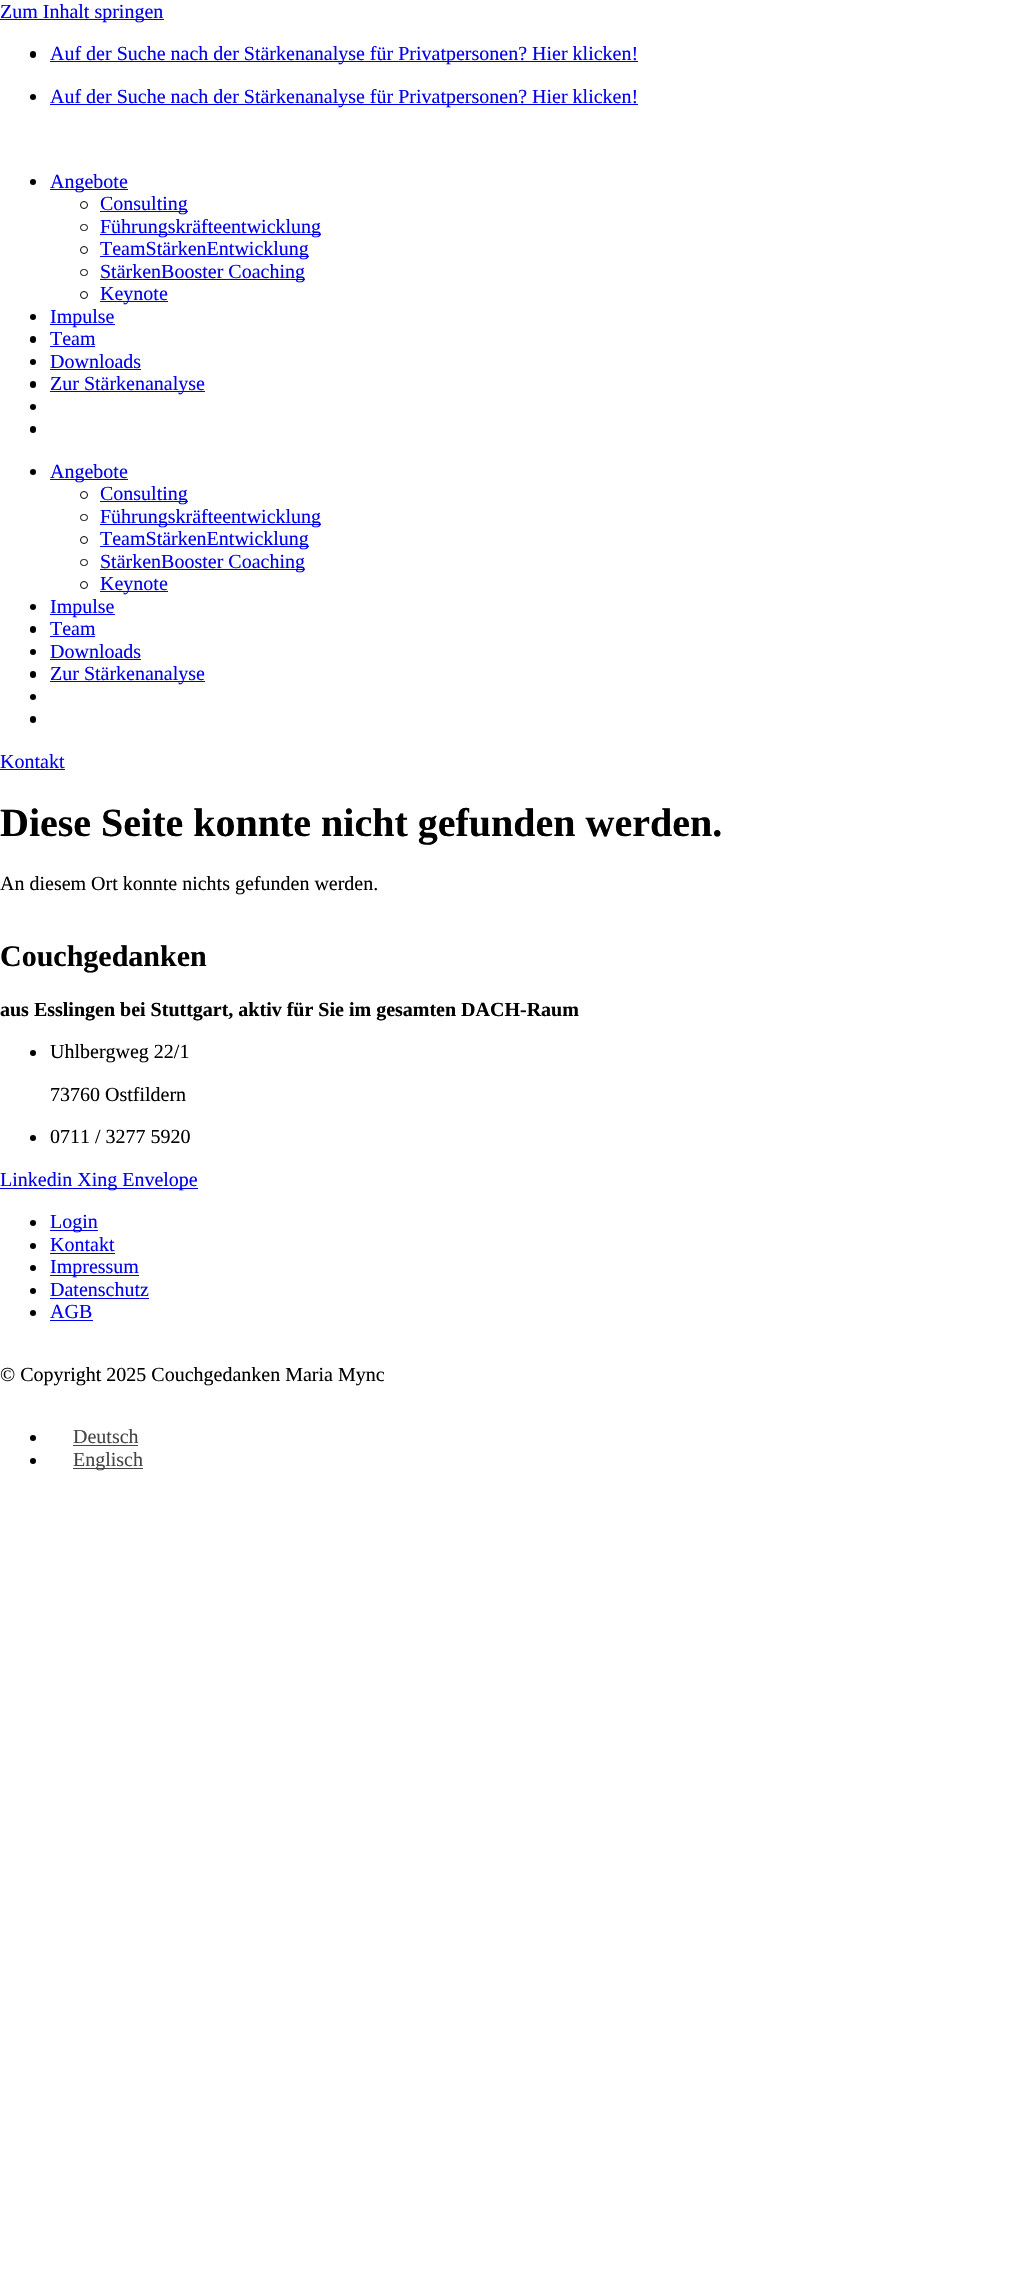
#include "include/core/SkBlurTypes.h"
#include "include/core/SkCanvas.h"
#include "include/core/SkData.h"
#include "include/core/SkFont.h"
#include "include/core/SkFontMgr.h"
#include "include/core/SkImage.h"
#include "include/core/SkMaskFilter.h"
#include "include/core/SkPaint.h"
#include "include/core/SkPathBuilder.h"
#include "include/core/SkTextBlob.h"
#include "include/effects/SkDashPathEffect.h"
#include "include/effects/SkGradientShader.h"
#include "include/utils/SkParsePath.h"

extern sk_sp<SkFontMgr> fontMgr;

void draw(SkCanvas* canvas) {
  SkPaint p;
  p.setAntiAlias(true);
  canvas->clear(SK_ColorWHITE);
  p.setColor(SkColorSetRGB(0, 0, 238));
  canvas->drawRect(SkRect::MakeLTRB(0, 19, 164, 20), p);
  p.setColor(SK_ColorBLACK);
  canvas->drawRoundRect(SkRect::MakeLTRB(30, 51, 36, 58), 3, 3, p);
  p.setColor(SkColorSetRGB(0, 0, 238));
  canvas->drawRect(SkRect::MakeLTRB(50, 61, 638, 62), p);
  p.setColor(SK_ColorBLACK);
  canvas->drawCircle(33, 97, 3, p);
  p.setColor(SkColorSetRGB(0, 0, 238));
  canvas->drawRect(SkRect::MakeLTRB(50, 104, 638, 105), p);
  p.setColor(SK_ColorBLACK);
  canvas->drawCircle(33, 182, 3, p);
  p.setColor(SkColorSetRGB(0, 0, 238));
  canvas->drawRect(SkRect::MakeLTRB(50, 189, 128, 190), p);
  p.setStyle(SkPaint::kStroke_Style);
  p.setStrokeWidth(1);
  p.setColor(SK_ColorBLACK);
  canvas->drawCircle(84, 205, 3.5f, p);
  p.setStyle(SkPaint::kFill_Style);
  p.setColor(SkColorSetRGB(0, 0, 238));
  canvas->drawRect(SkRect::MakeLTRB(100, 211, 188, 212), p);
  p.setStyle(SkPaint::kStroke_Style);
  p.setColor(SK_ColorBLACK);
  canvas->drawRoundRect(SkRect::MakeLTRB(80.5f, 224.5f, 87.5f, 230.5f), 3, 3, p);
  p.setStyle(SkPaint::kFill_Style);
  p.setColor(SkColorSetRGB(0, 0, 238));
  canvas->drawRect(SkRect::MakeLTRB(100, 234, 321, 235), p);
  p.setStyle(SkPaint::kStroke_Style);
  p.setColor(SK_ColorBLACK);
  canvas->drawCircle(84, 250, 3.5f, p);
  p.setStyle(SkPaint::kFill_Style);
  p.setColor(SkColorSetRGB(0, 0, 238));
  canvas->drawRect(SkRect::MakeLTRB(100, 256, 309, 257), p);
  p.setStyle(SkPaint::kStroke_Style);
  p.setColor(SK_ColorBLACK);
  canvas->drawRoundRect(SkRect::MakeLTRB(80.5f, 269.5f, 87.5f, 275.5f), 3, 3, p);
  p.setStyle(SkPaint::kFill_Style);
  p.setColor(SkColorSetRGB(0, 0, 238));
  canvas->drawRect(SkRect::MakeLTRB(100, 279, 305, 280), p);
  p.setStyle(SkPaint::kStroke_Style);
  p.setColor(SK_ColorBLACK);
  canvas->drawCircle(84, 295, 3.5f, p);
  p.setStyle(SkPaint::kFill_Style);
  p.setColor(SkColorSetRGB(0, 0, 238));
  canvas->drawRect(SkRect::MakeLTRB(100, 301, 168, 302), p);
  p.setColor(SK_ColorBLACK);
  canvas->drawCircle(33, 317, 3, p);
  p.setColor(SkColorSetRGB(0, 0, 238));
  canvas->drawRect(SkRect::MakeLTRB(50, 324, 115, 325), p);
  p.setColor(SK_ColorBLACK);
  canvas->drawRoundRect(SkRect::MakeLTRB(30, 336, 36, 343), 3, 3, p);
  p.setColor(SkColorSetRGB(0, 0, 238));
  canvas->drawRect(SkRect::MakeLTRB(50, 346, 95, 347), p);
  p.setColor(SK_ColorBLACK);
  canvas->drawCircle(33, 362, 3, p);
  p.setColor(SkColorSetRGB(0, 0, 238));
  canvas->drawRect(SkRect::MakeLTRB(50, 369, 141, 370), p);
  p.setColor(SK_ColorBLACK);
  canvas->drawRoundRect(SkRect::MakeLTRB(30, 381, 36, 388), 3, 3, p);
  p.setColor(SkColorSetRGB(0, 0, 238));
  canvas->drawRect(SkRect::MakeLTRB(50, 391, 205, 392), p);
  p.setColor(SK_ColorBLACK);
  canvas->drawCircle(33, 407, 3, p);
  canvas->drawRoundRect(SkRect::MakeLTRB(30, 426, 36, 433), 3, 3, p);
  canvas->drawCircle(33, 472, 3, p);
  p.setColor(SkColorSetRGB(0, 0, 238));
  canvas->drawRect(SkRect::MakeLTRB(50, 479, 128, 480), p);
  p.setStyle(SkPaint::kStroke_Style);
  p.setColor(SK_ColorBLACK);
  canvas->drawCircle(84, 495, 3.5f, p);
  p.setStyle(SkPaint::kFill_Style);
  p.setColor(SkColorSetRGB(0, 0, 238));
  canvas->drawRect(SkRect::MakeLTRB(100, 501, 188, 502), p);
  p.setStyle(SkPaint::kStroke_Style);
  p.setColor(SK_ColorBLACK);
  canvas->drawRoundRect(SkRect::MakeLTRB(80.5f, 514.5f, 87.5f, 520.5f), 3, 3, p);
  p.setStyle(SkPaint::kFill_Style);
  p.setColor(SkColorSetRGB(0, 0, 238));
  canvas->drawRect(SkRect::MakeLTRB(100, 524, 321, 525), p);
  p.setStyle(SkPaint::kStroke_Style);
  p.setColor(SK_ColorBLACK);
  canvas->drawCircle(84, 540, 3.5f, p);
  p.setStyle(SkPaint::kFill_Style);
  p.setColor(SkColorSetRGB(0, 0, 238));
  canvas->drawRect(SkRect::MakeLTRB(100, 546, 309, 547), p);
  p.setStyle(SkPaint::kStroke_Style);
  p.setColor(SK_ColorBLACK);
  canvas->drawRoundRect(SkRect::MakeLTRB(80.5f, 559.5f, 87.5f, 565.5f), 3, 3, p);
  p.setStyle(SkPaint::kFill_Style);
  p.setColor(SkColorSetRGB(0, 0, 238));
  canvas->drawRect(SkRect::MakeLTRB(100, 569, 305, 570), p);
  p.setStyle(SkPaint::kStroke_Style);
  p.setColor(SK_ColorBLACK);
  canvas->drawCircle(84, 585, 3.5f, p);
  p.setStyle(SkPaint::kFill_Style);
  p.setColor(SkColorSetRGB(0, 0, 238));
  canvas->drawRect(SkRect::MakeLTRB(100, 591, 168, 592), p);
  p.setColor(SK_ColorBLACK);
  canvas->drawCircle(33, 607, 3, p);
  p.setColor(SkColorSetRGB(0, 0, 238));
  canvas->drawRect(SkRect::MakeLTRB(50, 614, 115, 615), p);
  p.setColor(SK_ColorBLACK);
  canvas->drawRoundRect(SkRect::MakeLTRB(30, 626, 36, 633), 3, 3, p);
  p.setColor(SkColorSetRGB(0, 0, 238));
  canvas->drawRect(SkRect::MakeLTRB(50, 636, 95, 637), p);
  p.setColor(SK_ColorBLACK);
  canvas->drawCircle(33, 652, 3, p);
  p.setColor(SkColorSetRGB(0, 0, 238));
  canvas->drawRect(SkRect::MakeLTRB(50, 659, 141, 660), p);
  p.setColor(SK_ColorBLACK);
  canvas->drawRoundRect(SkRect::MakeLTRB(30, 671, 36, 678), 3, 3, p);
  p.setColor(SkColorSetRGB(0, 0, 238));
  canvas->drawRect(SkRect::MakeLTRB(50, 681, 205, 682), p);
  p.setColor(SK_ColorBLACK);
  canvas->drawCircle(33, 697, 3, p);
  canvas->drawRoundRect(SkRect::MakeLTRB(30, 716, 36, 723), 3, 3, p);
  p.setColor(SkColorSetRGB(0, 0, 238));
  canvas->drawRect(SkRect::MakeLTRB(0, 769, 65, 770), p);
  p.setColor(SK_ColorBLACK);
  canvas->drawCircle(33, 1053, 3, p);
  canvas->drawCircle(33, 1138, 3, p);
  p.setColor(SkColorSetRGB(0, 0, 238));
  canvas->drawRect(SkRect::MakeLTRB(0, 1188, 198, 1189), p);
  p.setColor(SK_ColorBLACK);
  canvas->drawCircle(33, 1223, 3, p);
  p.setColor(SkColorSetRGB(0, 0, 238));
  canvas->drawRect(SkRect::MakeLTRB(50, 1230, 98, 1231), p);
  p.setColor(SK_ColorBLACK);
  canvas->drawCircle(33, 1246, 3, p);
  p.setColor(SkColorSetRGB(0, 0, 238));
  canvas->drawRect(SkRect::MakeLTRB(50, 1253, 115, 1254), p);
  p.setColor(SK_ColorBLACK);
  canvas->drawCircle(33, 1268, 3, p);
  p.setColor(SkColorSetRGB(0, 0, 238));
  canvas->drawRect(SkRect::MakeLTRB(50, 1275, 139, 1276), p);
  p.setColor(SK_ColorBLACK);
  canvas->drawCircle(33, 1291, 3, p);
  p.setColor(SkColorSetRGB(0, 0, 238));
  canvas->drawRect(SkRect::MakeLTRB(50, 1298, 149, 1299), p);
  p.setColor(SK_ColorBLACK);
  canvas->drawCircle(33, 1313, 3, p);
  p.setColor(SkColorSetRGB(0, 0, 238));
  canvas->drawRect(SkRect::MakeLTRB(50, 1320, 93, 1321), p);
  p.setColor(SK_ColorBLACK);
  canvas->drawCircle(33, 1438, 3, p);
  p.setColor(SkColorSetRGB(68, 68, 68));
  canvas->drawRect(SkRect::MakeLTRB(73, 1445, 138, 1446), p);
  p.setColor(SK_ColorBLACK);
  canvas->drawCircle(33, 1461, 3, p);
  p.setColor(SkColorSetRGB(68, 68, 68));
  canvas->drawRect(SkRect::MakeLTRB(73, 1468, 143, 1469), p);
  SkFont font1(fontMgr->matchFamilyStyle("Liberation Serif", SkFontStyle::Normal()), 20);
  font1.setSubpixel(true);
  p.setColor(SkColorSetRGB(0, 0, 238));
  canvas->drawString("Zum Inhalt springen", 0, 18, font1, p);
  canvas->drawString("Auf der Suche nach der Stärkenanalyse für Privatpersonen? Hier klicken!", 50, 60, font1, p);
  canvas->drawString("Auf der Suche nach der Stärkenanalyse für Privatpersonen? Hier klicken!", 50, 103, font1, p);
  canvas->drawString("Angebote", 50, 188, font1, p);
  canvas->drawString("Consulting", 100, 210, font1, p);
  canvas->drawString("Führungskräfteentwicklung", 100, 233, font1, p);
  canvas->drawString("TeamStärkenEntwicklung", 100, 255, font1, p);
  canvas->drawString("StärkenBooster Coaching", 100, 278, font1, p);
  canvas->drawString("Keynote", 100, 300, font1, p);
  canvas->drawString("Impulse", 50, 323, font1, p);
  canvas->drawString("Team", 50, 345, font1, p);
  canvas->drawString("Downloads", 50, 368, font1, p);
  canvas->drawString("Zur Stärkenanalyse", 50, 390, font1, p);
  canvas->drawString("Angebote", 50, 478, font1, p);
  canvas->drawString("Consulting", 100, 500, font1, p);
  canvas->drawString("Führungskräfteentwicklung", 100, 523, font1, p);
  canvas->drawString("TeamStärkenEntwicklung", 100, 545, font1, p);
  canvas->drawString("StärkenBooster Coaching", 100, 568, font1, p);
  canvas->drawString("Keynote", 100, 590, font1, p);
  canvas->drawString("Impulse", 50, 613, font1, p);
  canvas->drawString("Team", 50, 635, font1, p);
  canvas->drawString("Downloads", 50, 658, font1, p);
  canvas->drawString("Zur Stärkenanalyse", 50, 680, font1, p);
  canvas->drawString("Kontakt", 0, 768, font1, p);
  SkFont font2(fontMgr->matchFamilyStyle("Liberation Serif", SkFontStyle::Bold()), 40);
  font2.setSubpixel(true);
  p.setColor(SK_ColorBLACK);
  canvas->drawString("Diese Seite konnte nicht gefunden werden.", 0, 836, font2, p);
  canvas->drawString("An diesem Ort konnte nichts gefunden werden.", 0, 890, font1, p);
  SkFont font3(fontMgr->matchFamilyStyle("Liberation Serif", SkFontStyle::Bold()), 30);
  font3.setSubpixel(true);
  canvas->drawString("Couchgedanken", 0, 966, font3, p);
  SkFont font4(fontMgr->matchFamilyStyle("Liberation Serif", SkFontStyle::Bold()), 20);
  font4.setSubpixel(true);
  canvas->drawString("aus Esslingen bei Stuttgart, aktiv für Sie im gesamten DACH-Raum", 0, 1016, font4, p);
  canvas->drawString("Uhlbergweg 22/1", 50, 1058, font1, p);
  canvas->drawString("73760 Ostfildern", 50, 1101, font1, p);
  canvas->drawString("0711 / 3277 5920", 50, 1143, font1, p);
  p.setColor(SkColorSetRGB(0, 0, 238));
  canvas->drawString("Linkedin Xing Envelope", 0, 1186, font1, p);
  canvas->drawString("Login", 50, 1228, font1, p);
  canvas->drawString("Kontakt", 50, 1251, font1, p);
  canvas->drawString("Impressum", 50, 1273, font1, p);
  canvas->drawString("Datenschutz", 50, 1296, font1, p);
  canvas->drawString("AGB", 50, 1318, font1, p);
  p.setColor(SK_ColorBLACK);
  canvas->drawString("© Copyright 2025 Couchgedanken Maria Mync", 0, 1381, font1, p);
  p.setColor(SkColorSetRGB(68, 68, 68));
  canvas->drawString("Deutsch", 73, 1443, font1, p);
  canvas->drawString("Englisch", 73, 1466, font1, p);
}
